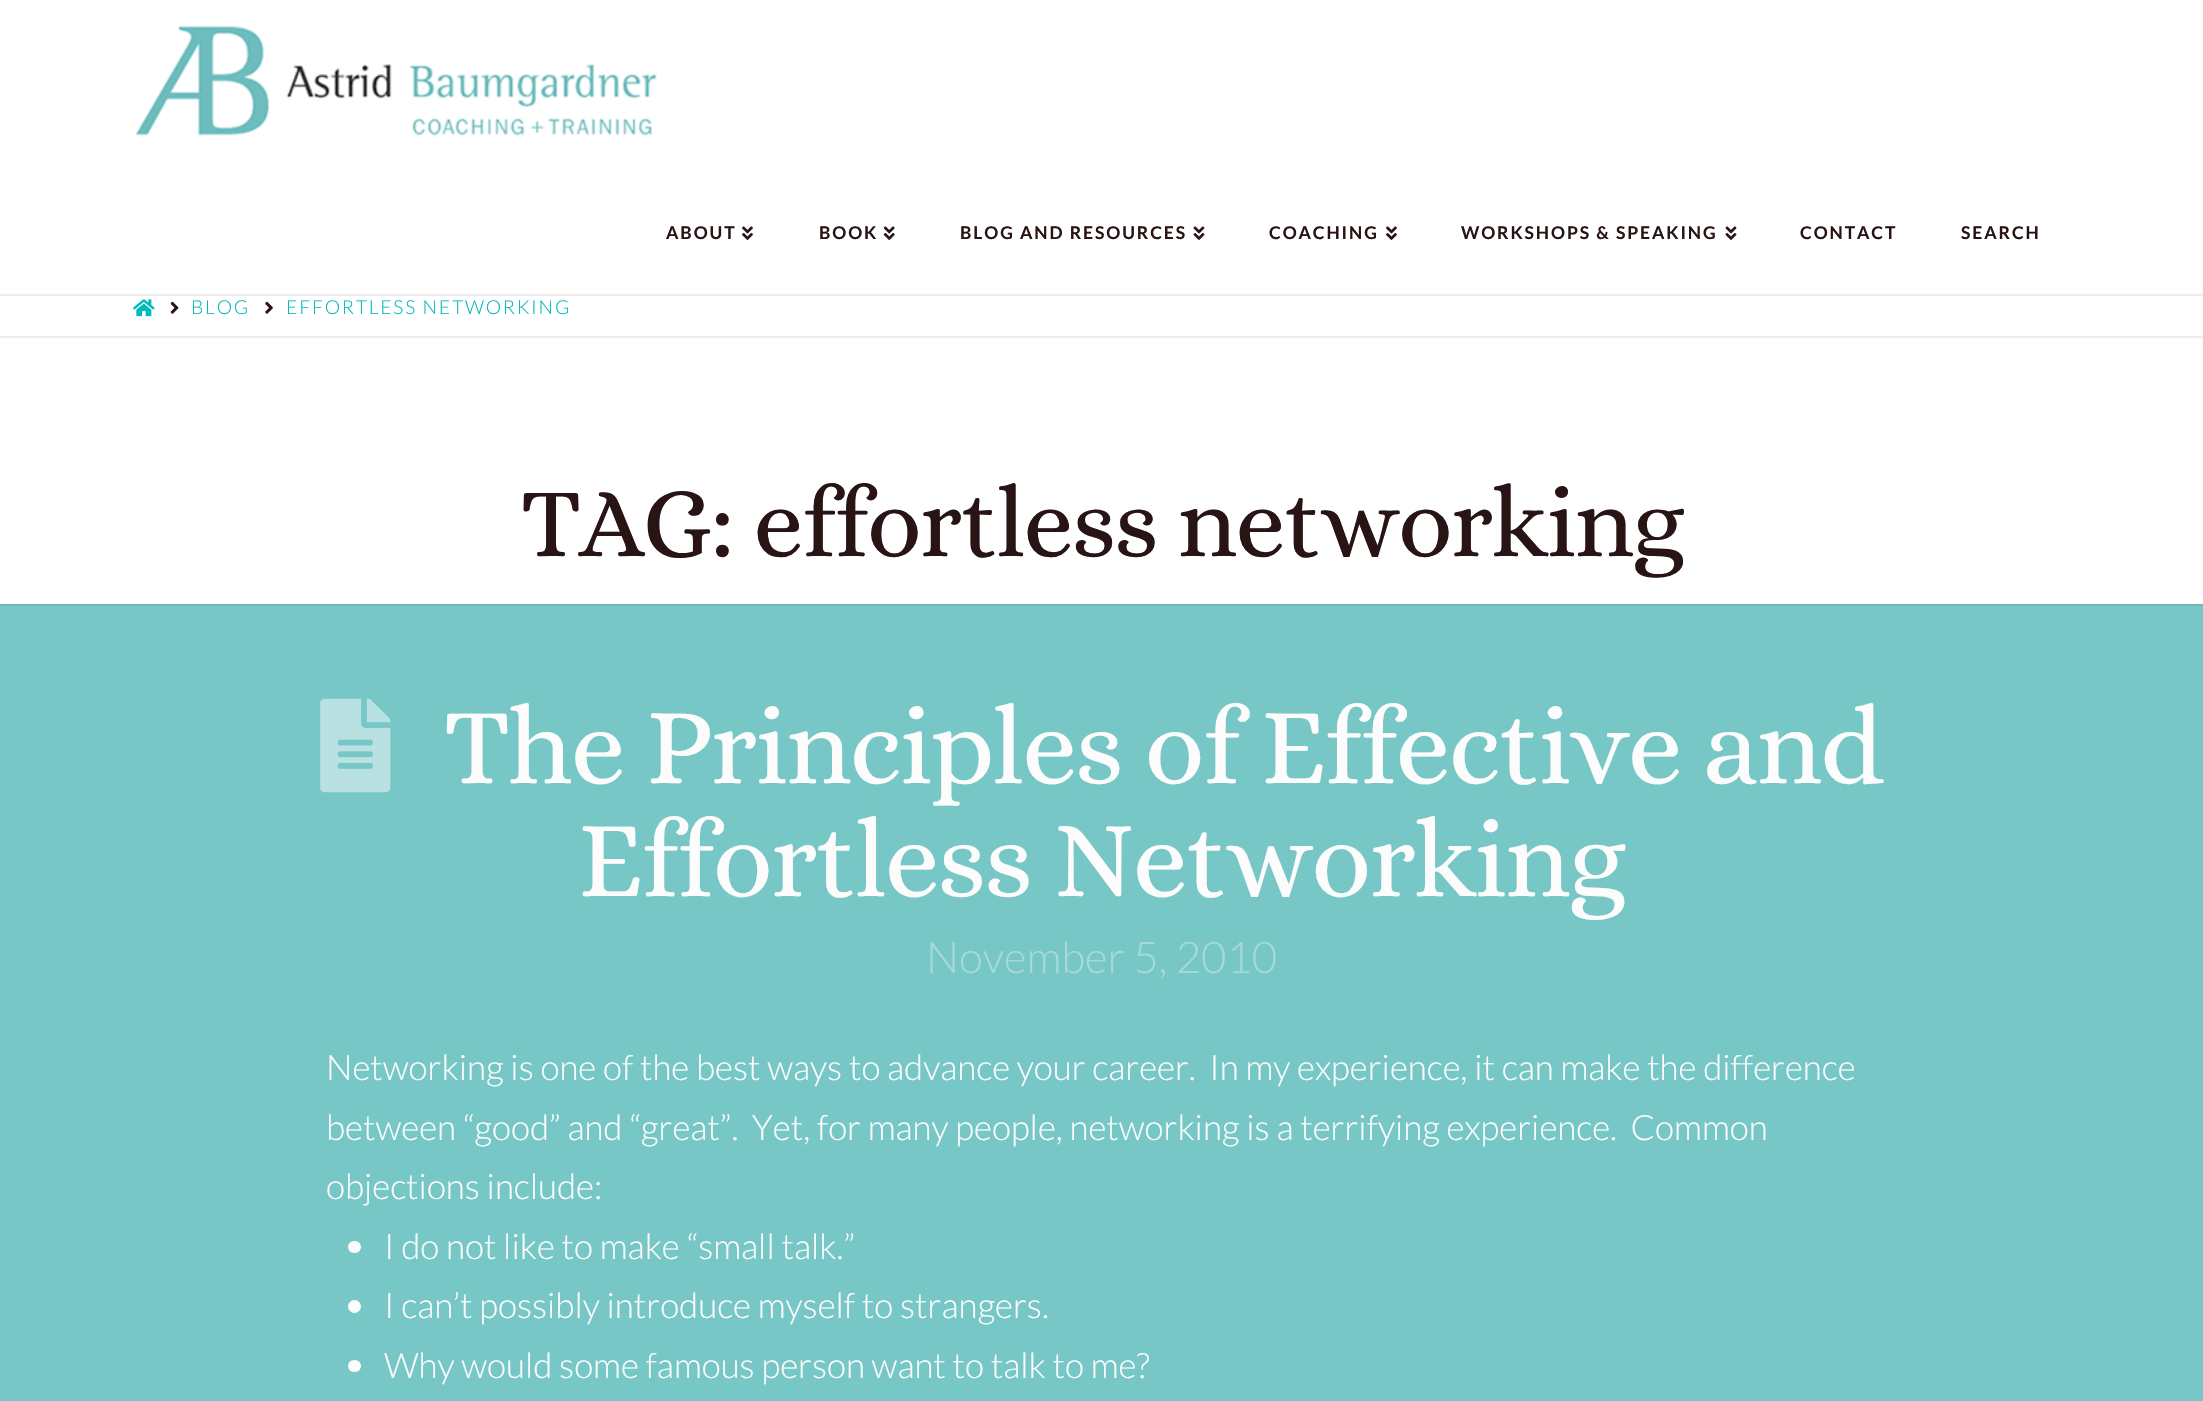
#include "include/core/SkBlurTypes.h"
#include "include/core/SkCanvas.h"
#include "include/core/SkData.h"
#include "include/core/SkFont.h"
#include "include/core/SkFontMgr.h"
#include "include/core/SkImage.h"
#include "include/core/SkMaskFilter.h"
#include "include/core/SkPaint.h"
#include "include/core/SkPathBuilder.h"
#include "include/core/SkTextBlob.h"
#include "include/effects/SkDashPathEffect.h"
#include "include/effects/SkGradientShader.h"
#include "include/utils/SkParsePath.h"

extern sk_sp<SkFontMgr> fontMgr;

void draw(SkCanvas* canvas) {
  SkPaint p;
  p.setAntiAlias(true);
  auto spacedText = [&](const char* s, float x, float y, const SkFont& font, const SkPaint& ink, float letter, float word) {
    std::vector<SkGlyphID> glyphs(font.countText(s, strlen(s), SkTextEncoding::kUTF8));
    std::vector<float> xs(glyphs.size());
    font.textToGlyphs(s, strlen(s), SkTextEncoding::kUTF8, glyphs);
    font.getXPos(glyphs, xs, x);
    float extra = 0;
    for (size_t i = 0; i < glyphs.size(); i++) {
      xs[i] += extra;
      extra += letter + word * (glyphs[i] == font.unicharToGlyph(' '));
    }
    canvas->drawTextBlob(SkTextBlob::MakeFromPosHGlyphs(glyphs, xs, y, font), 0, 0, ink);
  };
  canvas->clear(SK_ColorWHITE);
  p.setColor(SkColorSetRGB(236, 236, 236));
  canvas->drawRect(SkRect::MakeLTRB(0, 294, 2203, 296), p);
  canvas->drawImageRect(SkImages::DeferredFromEncodedData(SkData::MakeFromFileName("images/1.png")), SkRect::MakeLTRB(135, 26, 657, 136), SkSamplingOptions());
  canvas->drawImageRect(SkImages::DeferredFromEncodedData(SkData::MakeFromFileName("images/2.png")), SkRect::MakeLTRB(742, 226, 753, 240), SkSamplingOptions());
  canvas->drawImageRect(SkImages::DeferredFromEncodedData(SkData::MakeFromFileName("images/3.png")), SkRect::MakeLTRB(883, 226, 895, 240), SkSamplingOptions());
  canvas->drawImageRect(SkImages::DeferredFromEncodedData(SkData::MakeFromFileName("images/4.png")), SkRect::MakeLTRB(1193, 226, 1205, 240), SkSamplingOptions());
  canvas->drawImageRect(SkImages::DeferredFromEncodedData(SkData::MakeFromFileName("images/2.png")), SkRect::MakeLTRB(1386, 226, 1397, 240), SkSamplingOptions());
  canvas->drawImageRect(SkImages::DeferredFromEncodedData(SkData::MakeFromFileName("images/4.png")), SkRect::MakeLTRB(1725, 226, 1737, 240), SkSamplingOptions());
  canvas->drawRect(SkRect::MakeLTRB(0, 336, 2203, 338), p);
  canvas->drawImageRect(SkImages::DeferredFromEncodedData(SkData::MakeFromFileName("images/5.png")), SkRect::MakeLTRB(133, 299, 155, 317), SkSamplingOptions());
  canvas->drawImageRect(SkImages::DeferredFromEncodedData(SkData::MakeFromFileName("images/6.png")), SkRect::MakeLTRB(170, 301, 179, 314), SkSamplingOptions());
  canvas->drawImageRect(SkImages::DeferredFromEncodedData(SkData::MakeFromFileName("images/7.png")), SkRect::MakeLTRB(265, 301, 273, 314), SkSamplingOptions());
  p.setColor(SkColorSetRGB(120, 199, 199));
  canvas->drawRect(SkRect::MakeLTRB(0, 606, 2203, 1401), p);
  p.setColor(SkColorSetRGB(111, 184, 184));
  canvas->drawRect(SkRect::MakeLTRB(0, 604, 2203, 606), p);
  canvas->drawImageRect(SkImages::DeferredFromEncodedData(SkData::MakeFromFileName("images/8.png")), SkRect::MakeLTRB(320, 698, 391, 793), SkSamplingOptions());
  p.setColor(SkColorSetRGB(252, 252, 252));
  canvas->drawRoundRect(SkRect::MakeLTRB(348, 1241, 361, 1253), 6, 6, p);
  canvas->drawCircle(354.5f, 1306.5f, 6.5f, p);
  canvas->drawRoundRect(SkRect::MakeLTRB(348, 1360, 361, 1372), 6, 6, p);
  SkFont font1(fontMgr->matchFamilyStyle("Lato", SkFontStyle::Bold()), 17.5f);
  font1.setSubpixel(true);
  p.setColor(SkColorSetRGB(40, 20, 20));
  spacedText("ABOUT", 666, 239, font1, p, 1.9f, 0);
  spacedText("BOOK", 819, 239, font1, p, 1.9f, 0);
  spacedText("BLOG AND RESOURCES", 960, 239, font1, p, 1.9f, 0);
  spacedText("COACHING", 1269, 239, font1, p, 1.9f, 0);
  spacedText("WORKSHOPS & SPEAKING", 1461, 239, font1, p, 1.9f, 0);
  spacedText("CONTACT", 1800, 239, font1, p, 1.9f, 0);
  spacedText("SEARCH", 1961, 239, font1, p, 1.9f, 0);
  SkFont font2(fontMgr->matchFamilyStyle("Lato", SkFontStyle(300, SkFontStyle::kNormal_Width, SkFontStyle::kUpright_Slant)), 19.25f);
  font2.setSubpixel(true);
  p.setColor(SkColorSetRGB(1, 186, 186));
  spacedText("BLOG", 191, 314, font2, p, 1.75f, 0);
  spacedText("EFFORTLESS NETWORKING", 286, 314, font2, p, 1.75f, 0);
  SkFont font3(fontMgr->matchFamilyStyle("Alice", SkFontStyle::Normal()), 100);
  font3.setSubpixel(true);
  p.setColor(SkColorSetRGB(40, 20, 20));
  spacedText("TAG: effortless networking", 521, 556, font3, p, -1.8f, 0);
  SkFont font4(fontMgr->matchFamilyStyle("Alice", SkFontStyle::Normal()), 109.9f);
  font4.setSubpixel(true);
  p.setColor(SkColorSetRGB(252, 252, 252));
  spacedText("The Principles of Effective and", 444, 783, font4, p, -2, 0);
  spacedText("Effortless Networking", 578, 896, font4, p, -2, 0);
  SkFont font5(fontMgr->matchFamilyStyle("Lato", SkFontStyle(300, SkFontStyle::kNormal_Width, SkFontStyle::kUpright_Slant)), 43.75f);
  font5.setSubpixel(true);
  p.setColor(SkColorSetRGB(166, 218, 218));
  canvas->drawString("November 5, 2010", 926, 973, font5, p);
  SkFont font6(fontMgr->matchFamilyStyle("Lato", SkFontStyle(300, SkFontStyle::kNormal_Width, SkFontStyle::kUpright_Slant)), 35);
  font6.setSubpixel(true);
  p.setColor(SkColorSetRGB(252, 252, 252));
  canvas->drawString("Networking is one of the best ways to advance your career.  In my experience, it can make the difference", 326, 1080, font6, p);
  canvas->drawString("between “good” and “great”.  Yet, for many people, networking is a terrifying experience.  Common", 326, 1140, font6, p);
  canvas->drawString("objections include:", 326, 1199, font6, p);
  canvas->drawString("I do not like to make “small talk.”", 384, 1259, font6, p);
  canvas->drawString("I can’t possibly introduce myself to strangers.", 384, 1318, font6, p);
  canvas->drawString("Why would some famous person want to talk to me?", 384, 1378, font6, p);
}
